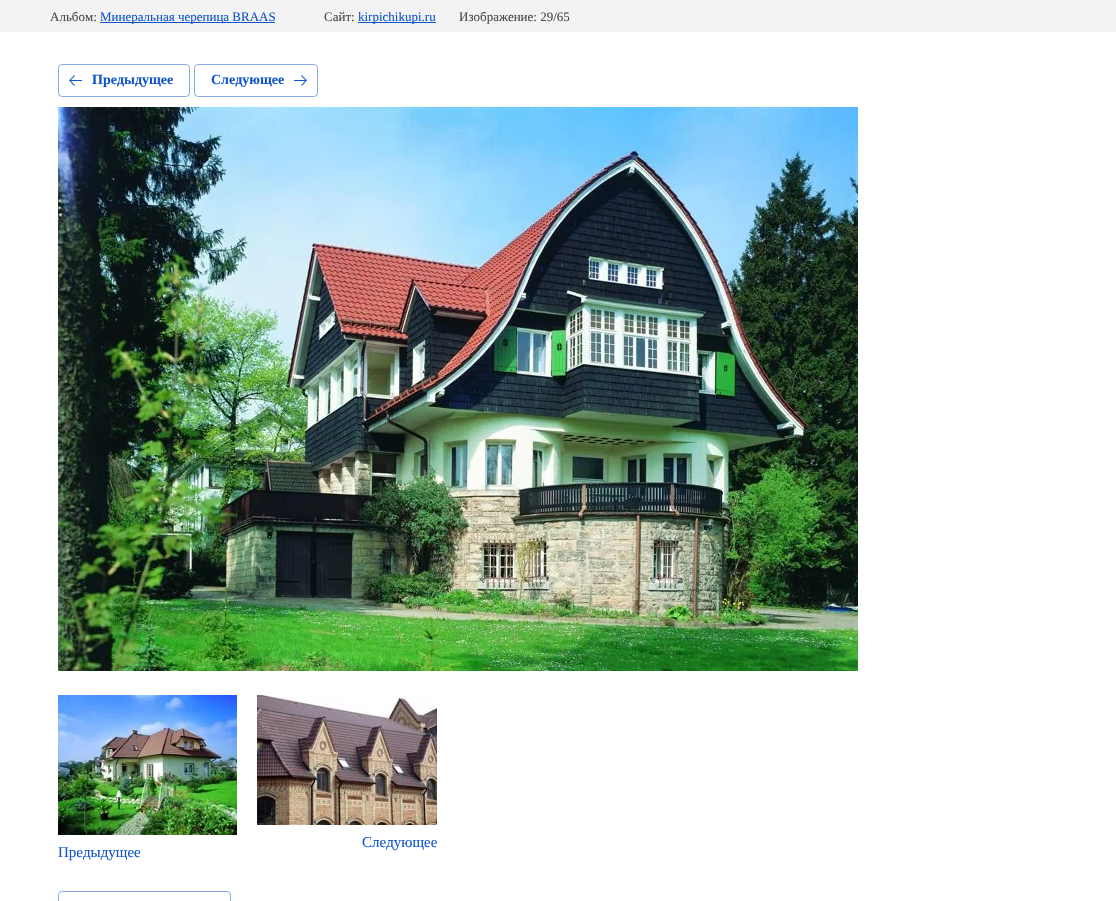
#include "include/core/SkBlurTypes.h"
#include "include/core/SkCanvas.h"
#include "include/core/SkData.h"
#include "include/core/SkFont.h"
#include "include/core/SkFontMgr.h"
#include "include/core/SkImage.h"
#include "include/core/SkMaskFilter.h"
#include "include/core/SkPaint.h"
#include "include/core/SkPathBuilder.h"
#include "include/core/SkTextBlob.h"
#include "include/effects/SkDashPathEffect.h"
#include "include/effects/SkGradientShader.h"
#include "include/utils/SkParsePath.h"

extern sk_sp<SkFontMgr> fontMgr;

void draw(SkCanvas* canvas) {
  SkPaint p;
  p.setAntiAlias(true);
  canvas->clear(SK_ColorWHITE);
  p.setColor(SkColorSetRGB(243, 243, 243));
  canvas->drawRect(SkRect::MakeLTRB(0, 0, 1116, 32), p);
  p.setColor(SkColorSetRGB(17, 85, 204));
  canvas->drawRect(SkRect::MakeLTRB(100, 22, 275, 23), p);
  canvas->drawRect(SkRect::MakeLTRB(358, 22, 436, 23), p);
  p.setStyle(SkPaint::kStroke_Style);
  p.setStrokeWidth(1);
  p.setColor(SkColorSetRGB(136, 170, 230));
  canvas->drawRoundRect(SkRect::MakeLTRB(58.5f, 64.5f, 189.5f, 96.5f), 3.5f, 3.5f, p);
  canvas->drawImageRect(SkImages::DeferredFromEncodedData(SkData::MakeFromFileName("images/1.png")), SkRect::MakeLTRB(69, 75, 82, 86), SkSamplingOptions());
  canvas->drawRoundRect(SkRect::MakeLTRB(194.5f, 64.5f, 317.5f, 96.5f), 3.5f, 3.5f, p);
  canvas->drawImageRect(SkImages::DeferredFromEncodedData(SkData::MakeFromFileName("images/2.png")), SkRect::MakeLTRB(294, 75, 307, 86), SkSamplingOptions());
  canvas->drawImageRect(SkImages::DeferredFromEncodedData(SkData::MakeFromFileName("images/3.png")), SkRect::MakeLTRB(58, 107, 858, 671), SkSamplingOptions());
  canvas->drawImageRect(SkImages::DeferredFromEncodedData(SkData::MakeFromFileName("images/4.png")), SkRect::MakeLTRB(257, 695, 437, 825), SkSamplingOptions());
  canvas->drawImageRect(SkImages::DeferredFromEncodedData(SkData::MakeFromFileName("images/5.png")), SkRect::MakeLTRB(58, 695, 237, 835), SkSamplingOptions());
  canvas->drawRoundRect(SkRect::MakeLTRB(58.5f, 891.5f, 230.5f, 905.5f), 3.5f, 3.5f, p);
  SkFont font1(fontMgr->matchFamilyStyle("Liberation Serif", SkFontStyle::Normal()), 13);
  font1.setSubpixel(true);
  p.setStyle(SkPaint::kFill_Style);
  p.setColor(SkColorSetRGB(72, 72, 72));
  canvas->drawString("Альбом:", 50, 21, font1, p);
  p.setColor(SkColorSetRGB(17, 85, 204));
  canvas->drawString("Минеральная черепица BRAAS", 100, 21, font1, p);
  p.setColor(SkColorSetRGB(72, 72, 72));
  canvas->drawString("Сайт:", 324, 21, font1, p);
  p.setColor(SkColorSetRGB(17, 85, 204));
  canvas->drawString("kirpichikupi.ru", 358, 21, font1, p);
  p.setColor(SkColorSetRGB(72, 72, 72));
  canvas->drawString("Изображение: 29/65", 459, 21, font1, p);
  SkFont font2(fontMgr->matchFamilyStyle("Liberation Serif", SkFontStyle::Bold()), 14);
  font2.setSubpixel(true);
  p.setColor(SkColorSetRGB(17, 85, 204));
  canvas->drawString("Предыдущее", 92, 84, font2, p);
  canvas->drawString("Следующее", 211, 84, font2, p);
  SkFont font3(fontMgr->matchFamilyStyle("Liberation Serif", SkFontStyle::Normal()), 15);
  font3.setSubpixel(true);
  canvas->drawString("Следующее", 362, 847, font3, p);
  canvas->drawString("Предыдущее", 58, 857, font3, p);
}
